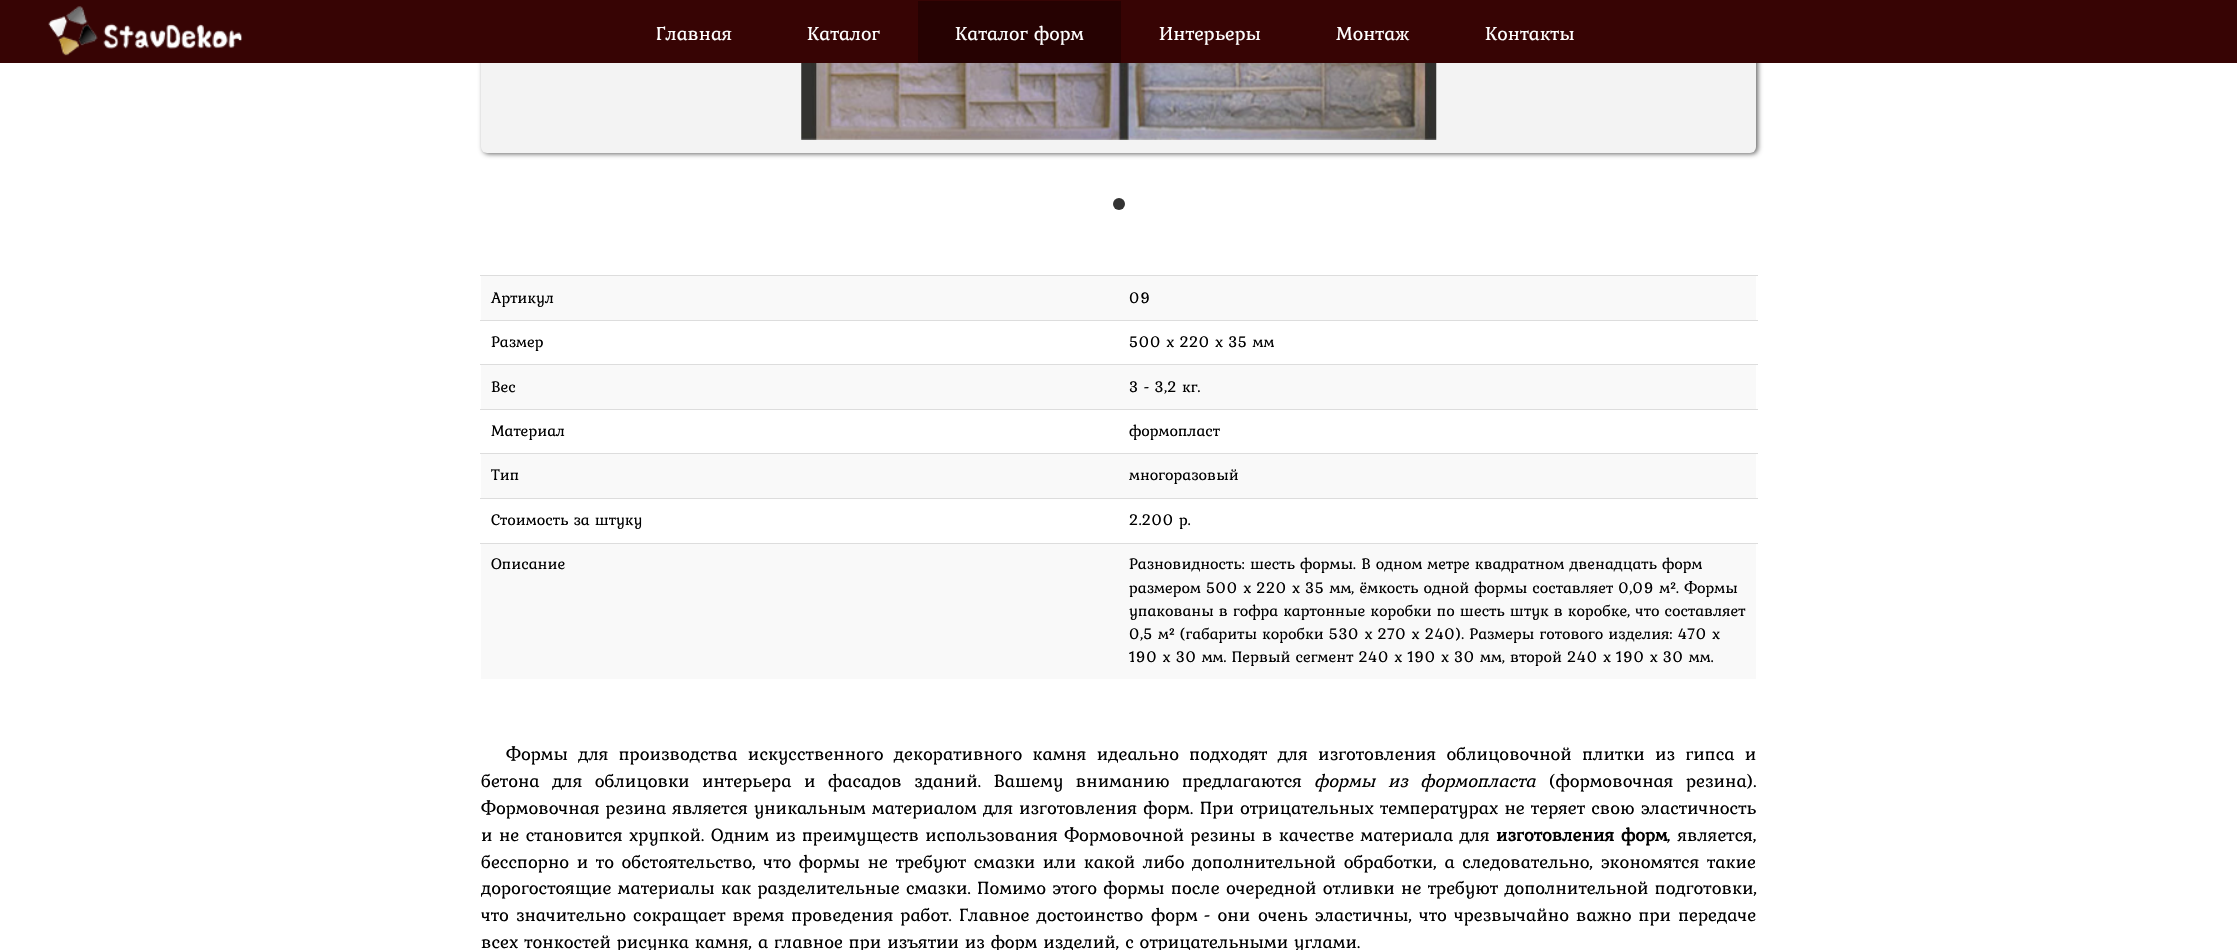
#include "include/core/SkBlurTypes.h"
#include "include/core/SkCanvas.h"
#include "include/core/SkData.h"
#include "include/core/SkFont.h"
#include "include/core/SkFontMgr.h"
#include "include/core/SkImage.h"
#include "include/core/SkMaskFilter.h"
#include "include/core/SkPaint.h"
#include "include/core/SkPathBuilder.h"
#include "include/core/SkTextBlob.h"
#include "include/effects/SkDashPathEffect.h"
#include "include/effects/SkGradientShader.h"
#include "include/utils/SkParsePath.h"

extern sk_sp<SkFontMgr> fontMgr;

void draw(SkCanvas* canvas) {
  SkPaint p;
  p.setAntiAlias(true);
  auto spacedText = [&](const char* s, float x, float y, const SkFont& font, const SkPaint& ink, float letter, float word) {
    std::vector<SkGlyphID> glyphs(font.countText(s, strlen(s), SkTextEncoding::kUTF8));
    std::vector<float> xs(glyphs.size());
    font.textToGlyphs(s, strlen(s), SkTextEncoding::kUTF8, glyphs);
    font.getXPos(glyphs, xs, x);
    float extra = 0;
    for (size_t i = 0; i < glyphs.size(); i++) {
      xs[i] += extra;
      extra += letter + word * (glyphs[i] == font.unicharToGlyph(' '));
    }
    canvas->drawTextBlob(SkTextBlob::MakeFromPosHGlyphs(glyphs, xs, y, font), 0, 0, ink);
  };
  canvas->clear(SK_ColorWHITE);
  p.setColor(SkColorSetRGB(102, 102, 102));
  p.setMaskFilter(SkMaskFilter::MakeBlur(kNormal_SkBlurStyle, 2.5f));
  canvas->drawRoundRect(SkRect::MakeLTRB(483, -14, 1758, 154), 6, 6, p);
  p.setMaskFilter(nullptr);
  p.setColor(SkColorSetRGB(243, 243, 243));
  canvas->drawRoundRect(SkRect::MakeLTRB(481, -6, 1756, 153), 6, 6, p);
  p.setColor(SkColorSetRGB(55, 4, 4));
  canvas->drawRect(SkRect::MakeLTRB(0, 0, 2237, 63), p);
  canvas->drawImageRect(SkImages::DeferredFromEncodedData(SkData::MakeFromFileName("images/1.png")), SkRect::MakeLTRB(48, 6, 243, 56), SkSamplingOptions());
  p.setColor(SkColorSetRGB(38, 2, 2));
  canvas->drawRect(SkRect::MakeLTRB(918, 1, 1121, 63), p);
  canvas->drawImageRect(SkImages::DeferredFromEncodedData(SkData::MakeFromFileName("images/2.png")), SkRect::MakeLTRB(801, 63, 1437, 140), SkSamplingOptions());
  p.setColor(SkColorSetRGB(51, 51, 51));
  canvas->drawCircle(1119, 204, 6, p);
  p.setColor(SkColorSetRGB(249, 249, 249));
  canvas->drawRect(SkRect::MakeLTRB(481, 276, 1756, 320), p);
  p.setColor(SkColorSetRGB(221, 221, 221));
  canvas->drawRect(SkRect::MakeLTRB(480, 275, 1758, 276), p);
  canvas->drawRect(SkRect::MakeLTRB(480, 320, 1758, 321), p);
  p.setColor(SkColorSetRGB(249, 249, 249));
  canvas->drawRect(SkRect::MakeLTRB(481, 365, 1756, 409), p);
  p.setColor(SkColorSetRGB(221, 221, 221));
  canvas->drawRect(SkRect::MakeLTRB(480, 364, 1758, 365), p);
  canvas->drawRect(SkRect::MakeLTRB(480, 409, 1758, 410), p);
  p.setColor(SkColorSetRGB(249, 249, 249));
  canvas->drawRect(SkRect::MakeLTRB(481, 454, 1756, 498), p);
  p.setColor(SkColorSetRGB(221, 221, 221));
  canvas->drawRect(SkRect::MakeLTRB(480, 453, 1758, 454), p);
  canvas->drawRect(SkRect::MakeLTRB(480, 498, 1758, 499), p);
  p.setColor(SkColorSetRGB(249, 249, 249));
  canvas->drawRect(SkRect::MakeLTRB(481, 544, 1756, 679), p);
  p.setColor(SkColorSetRGB(221, 221, 221));
  canvas->drawRect(SkRect::MakeLTRB(480, 543, 1758, 544), p);
  SkFont font1(fontMgr->matchFamilyStyle("Kurale", SkFontStyle::Normal()), 20);
  font1.setSubpixel(true);
  p.setColor(SK_ColorWHITE);
  canvas->drawString("Главная", 656, 40, font1, p);
  canvas->drawString("Каталог", 807, 40, font1, p);
  canvas->drawString("Каталог форм", 955, 40, font1, p);
  canvas->drawString("Интерьеры", 1159, 40, font1, p);
  canvas->drawString("Монтаж", 1336, 40, font1, p);
  canvas->drawString("Контакты", 1485, 40, font1, p);
  SkFont font2(fontMgr->matchFamilyStyle("Kurale", SkFontStyle::Normal()), 16.25f);
  font2.setSubpixel(true);
  p.setColor(SK_ColorBLACK);
  canvas->drawString("Артикул", 491, 303, font2, p);
  canvas->drawString("09", 1129, 303, font2, p);
  canvas->drawString("Размер", 491, 347, font2, p);
  canvas->drawString("500 х 220 x 35 мм", 1129, 347, font2, p);
  canvas->drawString("Вес", 491, 392, font2, p);
  canvas->drawString("3 - 3,2 кг.", 1129, 392, font2, p);
  canvas->drawString("Материал", 491, 436, font2, p);
  canvas->drawString("формопласт", 1129, 436, font2, p);
  canvas->drawString("Тип", 491, 480, font2, p);
  canvas->drawString("многоразовый", 1129, 480, font2, p);
  canvas->drawString("Стоимость за штуку", 491, 525, font2, p);
  canvas->drawString("2.200 р.", 1129, 525, font2, p);
  canvas->drawString("Описание", 491, 569, font2, p);
  canvas->drawString("Разновидность: шесть формы. В одном метре квадратном двенадцать форм", 1129, 569, font2, p);
  canvas->drawString("размером 500 х 220 x 35 мм, ёмкость одной формы составляет 0,09 м². Формы", 1129, 593, font2, p);
  canvas->drawString("упакованы в гофра картонные коробки по шесть штук в коробке, что составляет", 1129, 616, font2, p);
  canvas->drawString("0,5 м² (габариты коробки 530 х 270 х 240). Размеры готового изделия: 470 x", 1129, 639, font2, p);
  canvas->drawString("190 x 30 мм. Первый сегмент 240 x 190 x 30 мм, второй 240 x 190 x 30 мм.", 1129, 662, font2, p);
  SkFont font3(fontMgr->matchFamilyStyle("Kurale", SkFontStyle::Normal()), 18.75f);
  font3.setSubpixel(true);
  spacedText("Формы для производства искусственного декоративного камня идеально подходят для изготовления облицовочной плитки из гипса и", 506, 760, font3, p, 0, 4.5f);
  spacedText("бетона для облицовки интерьера и фасадов зданий. Вашему вниманию предлагаются", 481, 787, font3, p, 0, 6.75f);
  SkFont font4(fontMgr->matchFamilyStyle("Kurale", SkFontStyle::Italic()), 18.75f);
  font4.setSubpixel(true);
  spacedText("формы из формопласта", 1314, 787, font4, p, 0, 6.75f);
  spacedText("(формовочная резина).", 1549, 787, font3, p, 0, 6.75f);
  spacedText("Формовочная резина является уникальным материалом для изготовления форм.", 481, 814, font3, p, 0, 0.25f);
  spacedText("При отрицательных температурах не теряет свою эластичность", 1200, 814, font3, p, 0, 0.25f);
  spacedText("и не становится хрупкой. Одним из преимуществ использования Формовочной резины в качестве материала для", 481, 841, font3, p, 0, 0.6f);
  SkFont font5(fontMgr->matchFamilyStyle("Kurale", SkFontStyle::Bold()), 18.75f);
  font5.setSubpixel(true);
  spacedText("изготовления форм", 1496, 841, font5, p, 0, 1);
  spacedText(", является,", 1667, 841, font3, p, 0, 1);
  spacedText("бесспорно и то обстоятельство, что формы не требуют смазки или какой либо дополнительной обработки, а следовательно, экономятся такие", 481, 868, font3, p, 0, 1.8f);
  spacedText("дорогостоящие материалы как разделительные смазки. Помимо этого формы", 481, 894, font3, p, 0, 0.5f);
  spacedText("после очередной отливки не требуют дополнительной подготовки,", 1171, 894, font3, p, 0, 0.5f);
  spacedText("что значительно сокращает время проведения работ. Главное достоинство", 481, 921, font3, p, 0, 1.25f);
  canvas->drawString("форм", 1151, 921, font3, p);
  spacedText("- они", 1204, 921, font3, p, 0, 1);
  spacedText("очень эластичны, что чрезвычайно важно при передаче", 1258, 921, font3, p, 0, 1.25f);
  canvas->drawString("всех тонкостей рисунка камня, а главное при изъятии из форм изделий, с отрицательными углами.", 481, 948, font3, p);
}
